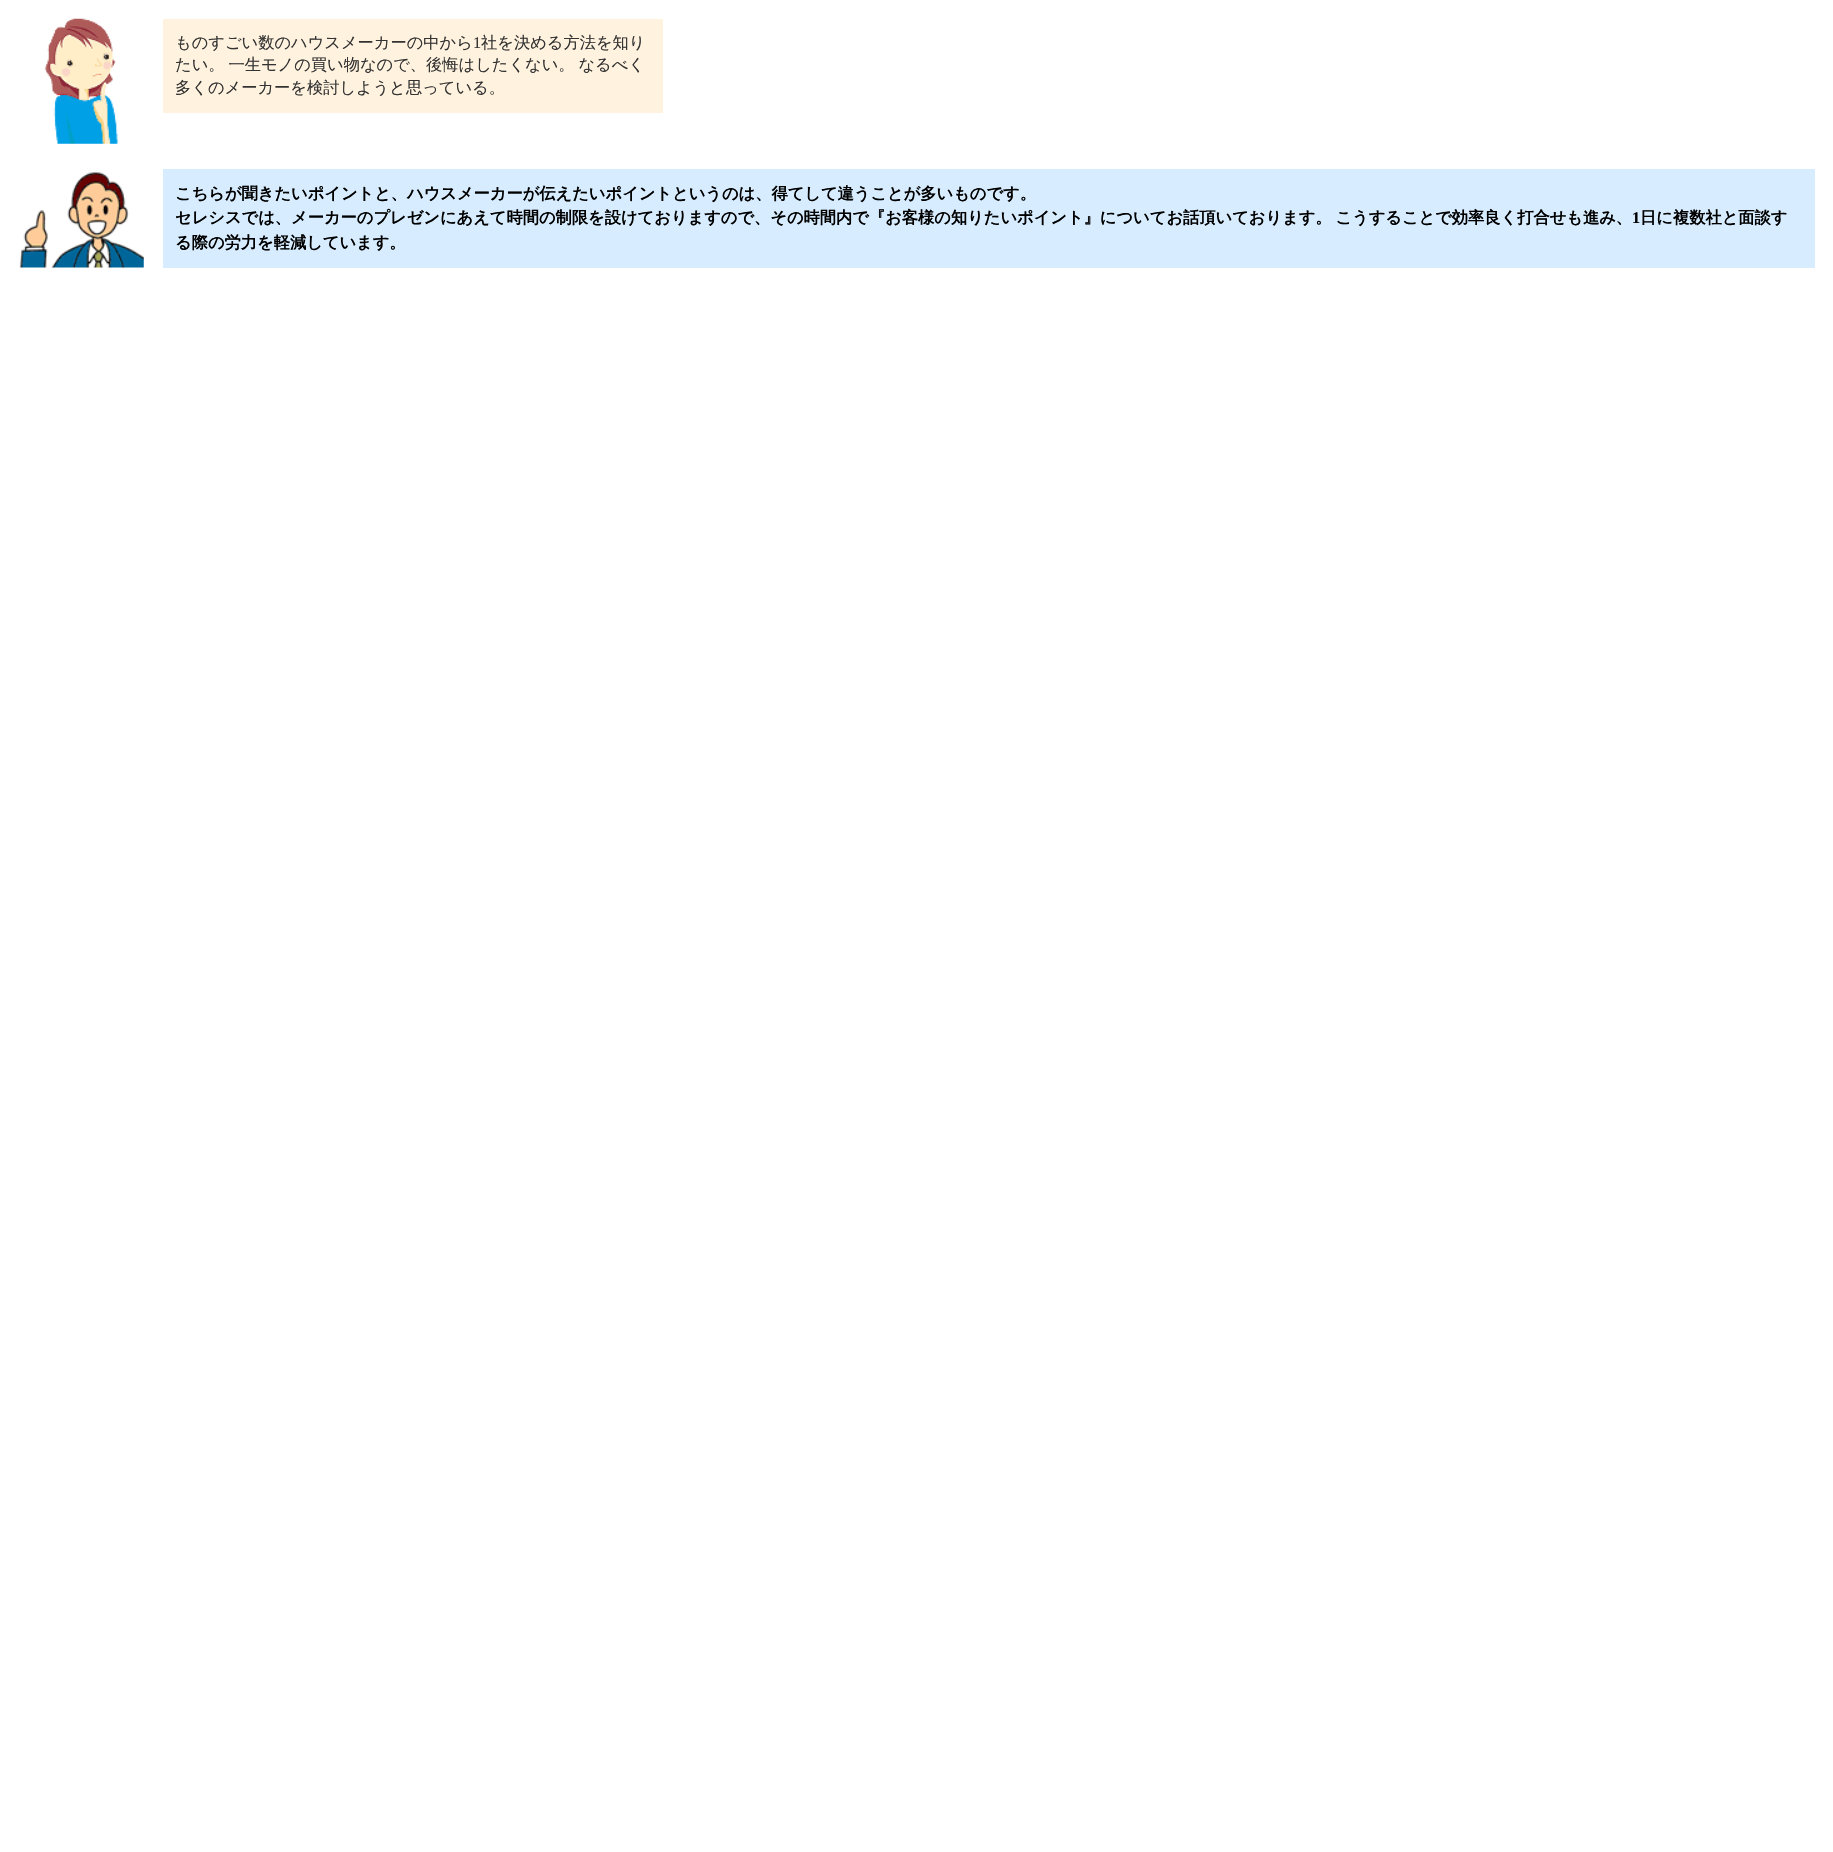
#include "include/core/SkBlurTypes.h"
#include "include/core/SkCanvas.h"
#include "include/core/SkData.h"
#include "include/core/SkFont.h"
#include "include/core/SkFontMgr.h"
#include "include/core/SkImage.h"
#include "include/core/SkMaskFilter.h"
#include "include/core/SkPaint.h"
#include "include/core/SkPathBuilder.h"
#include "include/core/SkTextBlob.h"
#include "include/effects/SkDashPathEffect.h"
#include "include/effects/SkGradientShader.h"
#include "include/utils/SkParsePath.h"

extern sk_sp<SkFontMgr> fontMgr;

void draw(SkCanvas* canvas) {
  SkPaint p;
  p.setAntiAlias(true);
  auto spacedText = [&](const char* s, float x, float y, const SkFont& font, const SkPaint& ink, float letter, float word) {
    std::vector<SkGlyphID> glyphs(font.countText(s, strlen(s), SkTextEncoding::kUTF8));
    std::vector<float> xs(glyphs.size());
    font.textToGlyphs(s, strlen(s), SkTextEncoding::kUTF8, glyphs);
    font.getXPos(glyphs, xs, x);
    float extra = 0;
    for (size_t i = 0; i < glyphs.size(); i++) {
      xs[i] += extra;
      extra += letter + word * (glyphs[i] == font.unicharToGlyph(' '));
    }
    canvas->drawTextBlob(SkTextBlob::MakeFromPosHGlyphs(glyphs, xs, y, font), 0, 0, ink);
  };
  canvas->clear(SK_ColorWHITE);
  canvas->drawImageRect(SkImages::DeferredFromEncodedData(SkData::MakeFromFileName("images/1.png")), SkRect::MakeLTRB(44, 18, 118, 144), SkSamplingOptions());
  p.setColor(SkColorSetRGB(255, 242, 222));
  canvas->drawRect(SkRect::MakeLTRB(163, 19, 663, 113), p);
  canvas->drawImageRect(SkImages::DeferredFromEncodedData(SkData::MakeFromFileName("images/2.png")), SkRect::MakeLTRB(19, 171, 144, 268), SkSamplingOptions());
  p.setColor(SkColorSetRGB(215, 237, 255));
  canvas->drawRect(SkRect::MakeLTRB(163, 169, 1815, 268), p);
  SkFont font1(fontMgr->matchFamilyStyle("WenQuanYi Zen Hei", SkFontStyle(500, SkFontStyle::kNormal_Width, SkFontStyle::kUpright_Slant)), 16.25f);
  font1.setSubpixel(true);
  p.setColor(SkColorSetRGB(51, 51, 51));
  canvas->drawString("ものすごい数のハウスメーカーの中から", 175, 48, font1, p);
  SkFont font2(fontMgr->matchFamilyStyle("Liberation Serif", SkFontStyle::Normal()), 16.25f);
  font2.setSubpixel(true);
  canvas->drawString("1", 473, 48, font2, p);
  canvas->drawString("社を決める方法を知り", 481, 48, font1, p);
  spacedText("たい。 一生モノの買い物なので、後悔はしたくない。 なるべく", 175, 70, font1, p, 0, -1);
  canvas->drawString("多くのメーカーを検討しようと思っている。", 175, 93, font1, p);
  SkFont font3(fontMgr->matchFamilyStyle("WenQuanYi Zen Hei", SkFontStyle::Bold()), 16.25f);
  font3.setSubpixel(true);
  p.setColor(SK_ColorBLACK);
  canvas->drawString("こちらが聞きたいポイントと、ハウスメーカーが伝えたいポイントというのは、得てして違うことが多いものです。", 175, 199, font3, p);
  spacedText("セレシスでは、メーカーのプレゼンにあえて時間の制限を設けておりますので、その時間内で『お客様の知りたいポイント』についてお話頂いております。 こうすることで効率良く打合せも進み、", 175, 223, font3, p, 0, -1);
  SkFont font4(fontMgr->matchFamilyStyle("Liberation Serif", SkFontStyle::Bold()), 16.25f);
  font4.setSubpixel(true);
  canvas->drawString("1", 1632, 223, font4, p);
  canvas->drawString("日に複数社と面談す", 1640, 223, font3, p);
  canvas->drawString("る際の労力を軽減しています。", 175, 248, font3, p);
}
